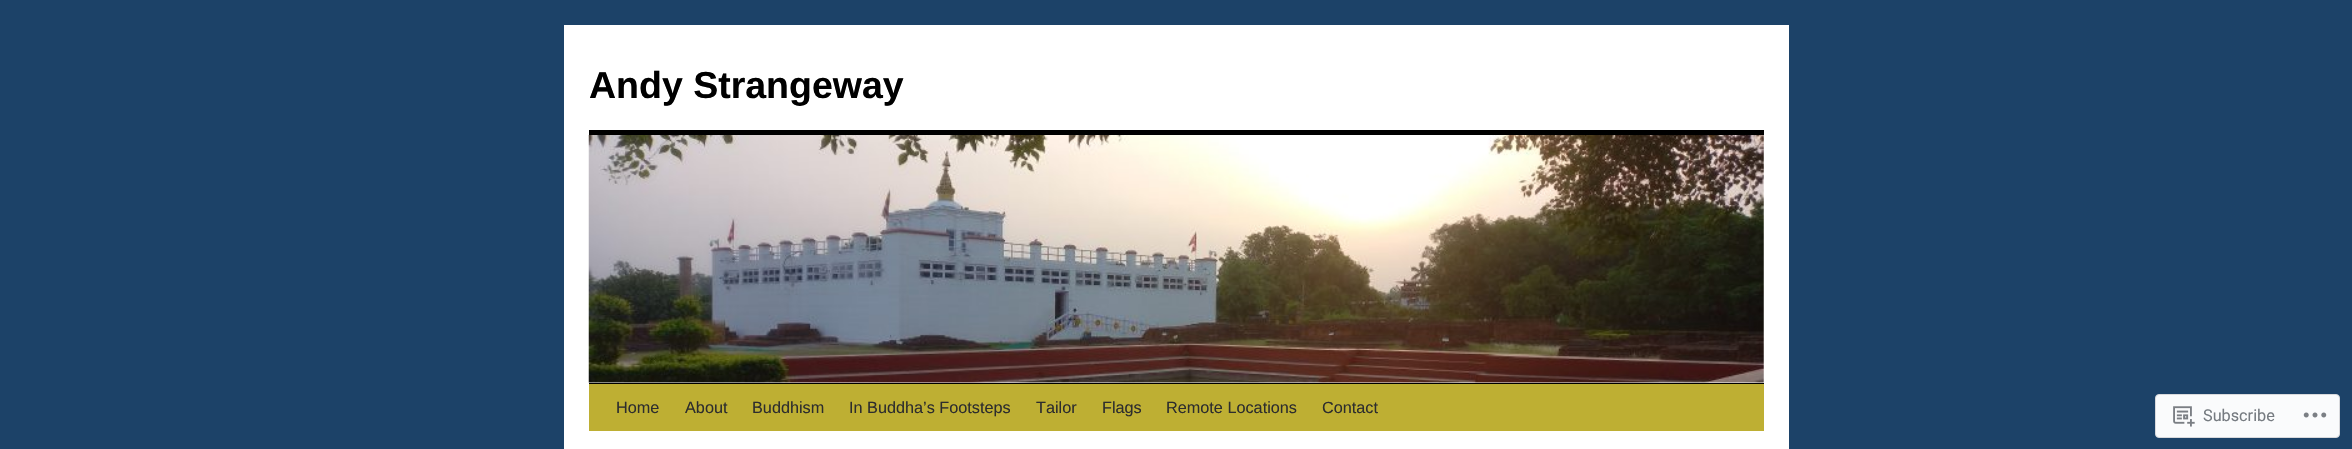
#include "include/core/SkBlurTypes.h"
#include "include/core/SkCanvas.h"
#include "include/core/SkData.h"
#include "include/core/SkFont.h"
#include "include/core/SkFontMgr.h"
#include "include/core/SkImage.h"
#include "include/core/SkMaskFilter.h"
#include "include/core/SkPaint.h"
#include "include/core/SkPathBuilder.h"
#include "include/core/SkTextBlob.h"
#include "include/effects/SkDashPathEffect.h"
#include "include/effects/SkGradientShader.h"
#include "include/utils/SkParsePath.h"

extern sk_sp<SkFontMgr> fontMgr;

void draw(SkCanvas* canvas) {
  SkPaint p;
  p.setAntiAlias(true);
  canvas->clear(SkColorSetRGB(28, 66, 104));
  p.setColor(SK_ColorWHITE);
  canvas->drawRect(SkRect::MakeLTRB(564, 25, 1789, 449), p);
  p.setColor(SK_ColorBLACK);
  canvas->drawRect(SkRect::MakeLTRB(589, 130, 1764, 135), p);
  canvas->drawRect(SkRect::MakeLTRB(589, 383, 1764, 384), p);
  canvas->drawImageRect(SkImages::DeferredFromEncodedData(SkData::MakeFromFileName("images/1.png")), SkRect::MakeLTRB(588, 135, 1764, 383), SkSamplingOptions());
  p.setColor(SkColorSetRGB(190, 175, 51));
  canvas->drawRect(SkRect::MakeLTRB(589, 384, 1764, 431), p);
  p.setColor(SkColorSetRGB(250, 251, 252));
  canvas->drawRoundRect(SkRect::MakeLTRB(2155.5f, 394.5f, 2339.5f, 437.5f), 3.5f, 3.5f, p);
  p.setStyle(SkPaint::kStroke_Style);
  p.setStrokeWidth(1);
  p.setColor(SkColorSetRGB(216, 217, 220));
  canvas->drawRoundRect(SkRect::MakeLTRB(2155.5f, 394.5f, 2339.5f, 437.5f), 3.5f, 3.5f, p);
  canvas->drawImageRect(SkImages::DeferredFromEncodedData(SkData::MakeFromFileName("images/2.png")), SkRect::MakeLTRB(2173, 406, 2195, 427), SkSamplingOptions());
  canvas->drawImageRect(SkImages::DeferredFromEncodedData(SkData::MakeFromFileName("images/3.png")), SkRect::MakeLTRB(2303, 412, 2327, 418), SkSamplingOptions());
  SkFont font1(fontMgr->matchFamilyStyle("Liberation Sans", SkFontStyle::Bold()), 37.5f);
  font1.setSubpixel(true);
  p.setStyle(SkPaint::kFill_Style);
  p.setColor(SK_ColorBLACK);
  canvas->drawString("Andy Strangeway", 589, 98, font1, p);
  SkFont font2(fontMgr->matchFamilyStyle("Liberation Sans", SkFontStyle::Normal()), 16.25f);
  font2.setSubpixel(true);
  p.setColor(SkColorSetRGB(45, 45, 45));
  canvas->drawString("Home", 616, 413, font2, p);
  canvas->drawString("About", 685, 413, font2, p);
  canvas->drawString("Buddhism", 752, 413, font2, p);
  canvas->drawString("In Buddha’s Footsteps", 849, 413, font2, p);
  canvas->drawString("Tailor", 1036, 413, font2, p);
  canvas->drawString("Flags", 1102, 413, font2, p);
  canvas->drawString("Remote Locations", 1166, 413, font2, p);
  canvas->drawString("Contact", 1322, 413, font2, p);
  SkFont font3(fontMgr->matchFamilyStyle("Roboto", SkFontStyle::Normal()), 16.25f);
  font3.setSubpixel(true);
  p.setColor(SkColorSetRGB(118, 123, 129));
  canvas->drawString("Subscribe", 2203, 421, font3, p);
}
